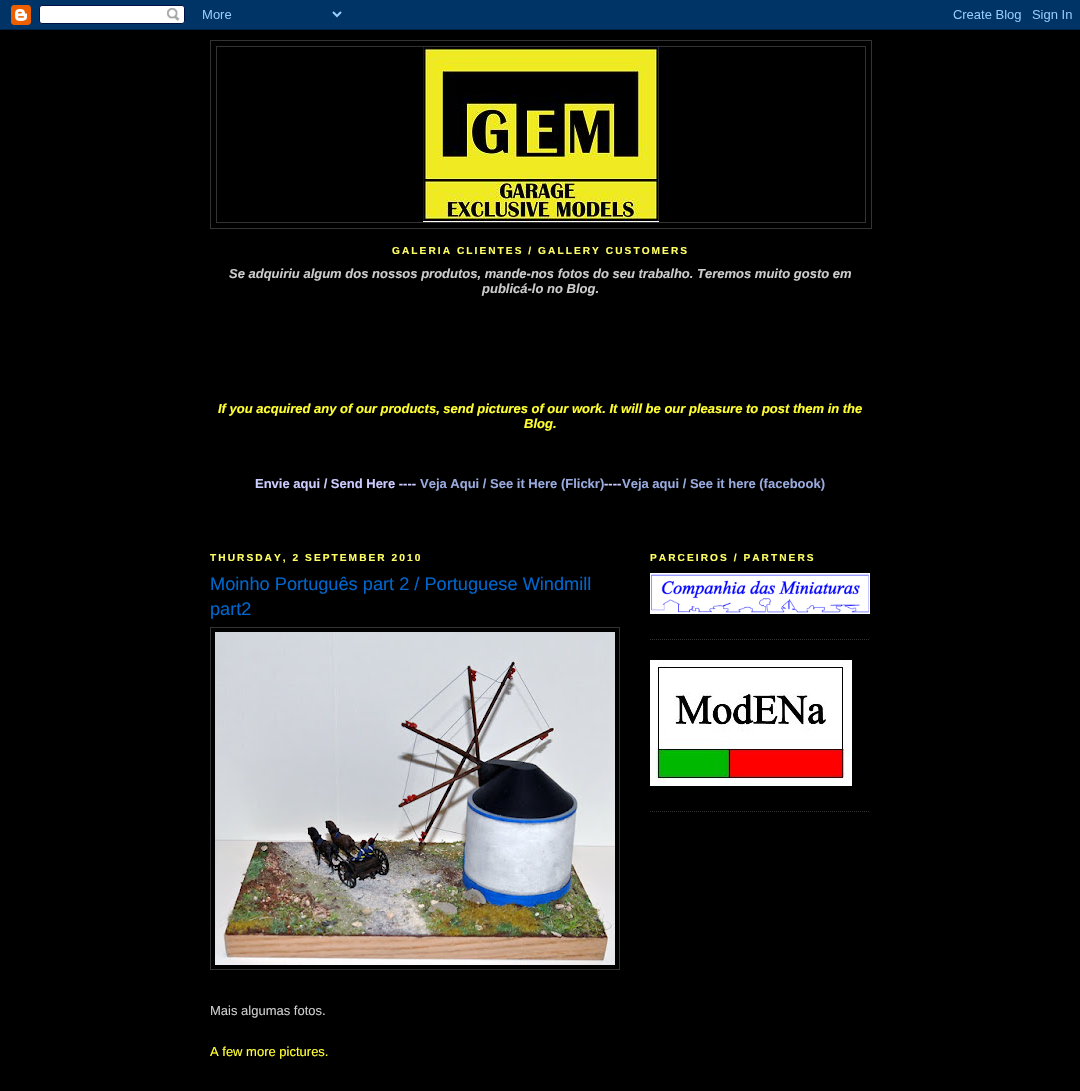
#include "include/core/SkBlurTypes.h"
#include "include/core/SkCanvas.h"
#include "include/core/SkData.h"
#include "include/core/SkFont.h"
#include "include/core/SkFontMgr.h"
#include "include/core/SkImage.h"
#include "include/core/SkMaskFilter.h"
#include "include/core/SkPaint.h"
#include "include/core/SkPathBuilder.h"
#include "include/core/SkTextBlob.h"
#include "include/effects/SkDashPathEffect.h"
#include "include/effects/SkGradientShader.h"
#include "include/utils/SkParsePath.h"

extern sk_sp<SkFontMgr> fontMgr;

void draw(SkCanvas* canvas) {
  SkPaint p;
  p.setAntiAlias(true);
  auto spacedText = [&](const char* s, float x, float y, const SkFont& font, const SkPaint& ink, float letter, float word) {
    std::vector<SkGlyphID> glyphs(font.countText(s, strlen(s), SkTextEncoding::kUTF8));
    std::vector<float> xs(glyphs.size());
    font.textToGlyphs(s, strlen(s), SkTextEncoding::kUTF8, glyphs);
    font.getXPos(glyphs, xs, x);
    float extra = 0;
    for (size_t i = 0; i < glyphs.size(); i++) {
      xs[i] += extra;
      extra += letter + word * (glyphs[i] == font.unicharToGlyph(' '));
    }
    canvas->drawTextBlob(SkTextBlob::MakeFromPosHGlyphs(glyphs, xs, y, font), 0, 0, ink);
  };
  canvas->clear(SK_ColorBLACK);
  canvas->drawImageRect(SkImages::DeferredFromEncodedData(SkData::MakeFromFileName("images/1.png")), SkRect::MakeLTRB(0, 0, 1080, 30), SkSamplingOptions());
  p.setStyle(SkPaint::kStroke_Style);
  p.setStrokeWidth(1);
  p.setColor(SkColorSetRGB(51, 51, 51));
  canvas->drawRect(SkRect::MakeLTRB(210.5f, 40.5f, 871.5f, 228.5f), p);
  canvas->drawRect(SkRect::MakeLTRB(216.5f, 46.5f, 865.5f, 222.5f), p);
  canvas->drawImageRect(SkImages::DeferredFromEncodedData(SkData::MakeFromFileName("images/2.png")), SkRect::MakeLTRB(423, 47, 659, 222), SkSamplingOptions());
  canvas->drawRect(SkRect::MakeLTRB(210.5f, 627.5f, 619.5f, 969.5f), p);
  canvas->drawImageRect(SkImages::DeferredFromEncodedData(SkData::MakeFromFileName("images/3.png")), SkRect::MakeLTRB(215, 632, 615, 965), SkSamplingOptions());
  p.setPathEffect(SkDashPathEffect::Make({{1, 1}}, 0));
  canvas->drawPath(SkPathBuilder().moveTo(650, 639.5f).lineTo(870, 639.5f).detach(), p);
  p.setPathEffect(nullptr);
  canvas->drawImageRect(SkImages::DeferredFromEncodedData(SkData::MakeFromFileName("images/4.png")), SkRect::MakeLTRB(650, 573, 870, 614), SkSamplingOptions());
  p.setPathEffect(SkDashPathEffect::Make({{1, 1}}, 0));
  canvas->drawPath(SkPathBuilder().moveTo(650, 811.5f).lineTo(870, 811.5f).detach(), p);
  p.setPathEffect(nullptr);
  canvas->drawImageRect(SkImages::DeferredFromEncodedData(SkData::MakeFromFileName("images/5.png")), SkRect::MakeLTRB(650, 660, 852, 786), SkSamplingOptions());
  SkFont font1(fontMgr->matchFamilyStyle("Liberation Sans", SkFontStyle::Bold()), 10.15f);
  font1.setSubpixel(true);
  p.setStyle(SkPaint::kFill_Style);
  p.setColor(SkColorSetRGB(255, 255, 102));
  spacedText("GALERIA CLIENTES / GALLERY CUSTOMERS", 392, 254, font1, p, 2.05f, 0);
  SkFont font2(fontMgr->matchFamilyStyle("Liberation Sans", SkFontStyle::BoldItalic()), 13);
  font2.setSubpixel(true);
  p.setColor(SkColorSetRGB(204, 204, 204));
  canvas->drawString("Se adquiriu algum dos nossos produtos, mande-nos fotos do seu trabalho. Teremos muito gosto em", 229, 278, font2, p);
  canvas->drawString("publicá-lo no Blog.", 482, 293, font2, p);
  p.setColor(SkColorSetRGB(255, 255, 51));
  canvas->drawString("If you acquired any of our products, send pictures of our work. It will be our pleasure to post them in the", 218, 413, font2, p);
  canvas->drawString("Blog.", 524, 428, font2, p);
  SkFont font3(fontMgr->matchFamilyStyle("Liberation Sans", SkFontStyle::Bold()), 13);
  font3.setSubpixel(true);
  p.setColor(SkColorSetRGB(204, 204, 255));
  canvas->drawString("Envie aqui / Send Here ----", 255, 488, font3, p);
  p.setColor(SkColorSetRGB(153, 170, 221));
  canvas->drawString("Veja Aqui / See it Here (Flickr)", 420, 488, font3, p);
  p.setColor(SkColorSetRGB(204, 204, 255));
  canvas->drawString("----", 604, 488, font3, p);
  p.setColor(SkColorSetRGB(153, 170, 221));
  canvas->drawString("Veja aqui / See it here (facebook)", 622, 488, font3, p);
  p.setColor(SkColorSetRGB(255, 255, 102));
  spacedText("THURSDAY, 2 SEPTEMBER 2010", 210, 561, font1, p, 2.05f, 0);
  SkFont font4(fontMgr->matchFamilyStyle("Liberation Sans", SkFontStyle::Normal()), 18.2f);
  font4.setSubpixel(true);
  p.setColor(SkColorSetRGB(0, 102, 204));
  canvas->drawString("Moinho Português part 2 / Portuguese Windmill", 210, 590, font4, p);
  canvas->drawString("part2", 210, 615, font4, p);
  SkFont font5(fontMgr->matchFamilyStyle("Liberation Sans", SkFontStyle::Normal()), 13);
  font5.setSubpixel(true);
  p.setColor(SkColorSetRGB(204, 204, 204));
  canvas->drawString("Mais algumas fotos.", 210, 1015, font5, p);
  p.setColor(SkColorSetRGB(255, 255, 51));
  canvas->drawString("A few more pictures.", 210, 1056, font5, p);
  p.setColor(SkColorSetRGB(255, 255, 102));
  spacedText("PARCEIROS / PARTNERS", 650, 561, font1, p, 2.05f, 0);
}
